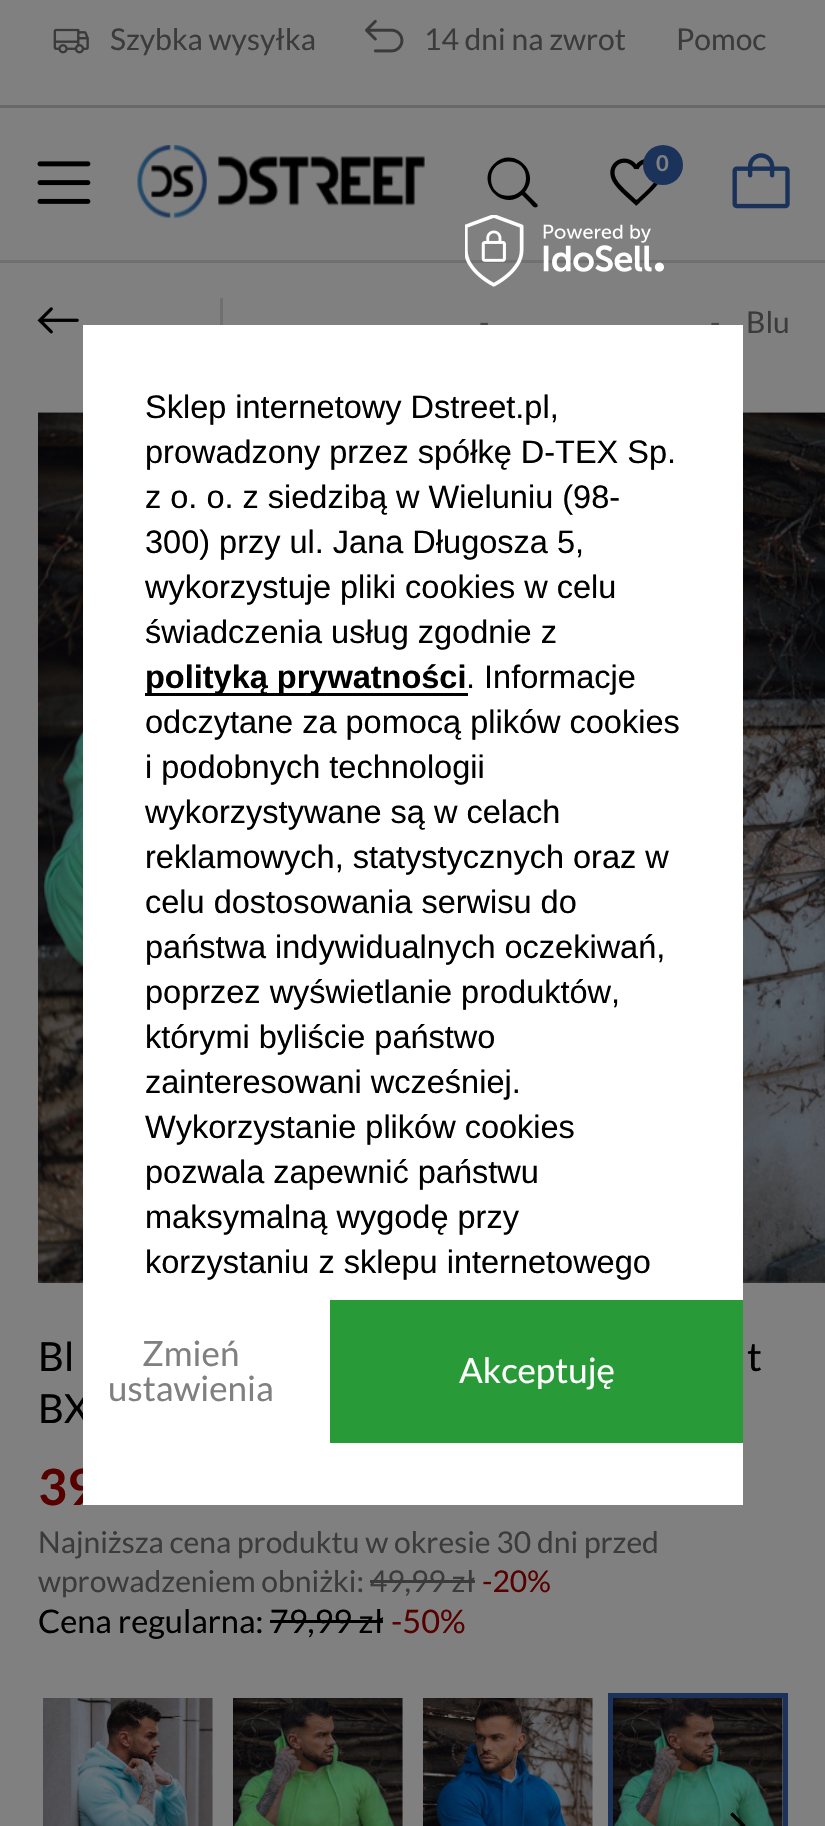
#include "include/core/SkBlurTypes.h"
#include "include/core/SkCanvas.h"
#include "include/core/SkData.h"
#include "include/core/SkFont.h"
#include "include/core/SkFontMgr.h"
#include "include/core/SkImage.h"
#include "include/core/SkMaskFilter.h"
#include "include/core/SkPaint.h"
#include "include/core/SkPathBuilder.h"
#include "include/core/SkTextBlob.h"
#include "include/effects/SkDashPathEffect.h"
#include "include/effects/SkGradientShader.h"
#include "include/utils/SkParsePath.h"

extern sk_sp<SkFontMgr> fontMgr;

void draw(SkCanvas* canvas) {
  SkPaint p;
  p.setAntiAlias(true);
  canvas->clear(SkColorSetRGB(128, 128, 128));
  p.setColor(SkColorSetRGB(112, 112, 112));
  canvas->drawRect(SkRect::MakeLTRB(0, 260, 825, 263), p);
  p.setColor(SkColorSetRGB(104, 104, 104));
  canvas->drawRect(SkRect::MakeLTRB(0, 105, 825, 108), p);
  canvas->drawImageRect(SkImages::DeferredFromEncodedData(SkData::MakeFromFileName("images/1.png")), SkRect::MakeLTRB(53, 28, 89, 54), SkSamplingOptions());
  canvas->drawImageRect(SkImages::DeferredFromEncodedData(SkData::MakeFromFileName("images/2.png")), SkRect::MakeLTRB(365, 19, 404, 53), SkSamplingOptions());
  canvas->drawImageRect(SkImages::DeferredFromEncodedData(SkData::MakeFromFileName("images/3.png")), SkRect::MakeLTRB(37, 161, 91, 204), SkSamplingOptions());
  canvas->drawImageRect(SkImages::DeferredFromEncodedData(SkData::MakeFromFileName("images/4.png")), SkRect::MakeLTRB(137, 145, 425, 218), SkSamplingOptions());
  p.setColor(SK_ColorBLACK);
  canvas->drawPath(SkPathBuilder().moveTo(537, 204).lineTo(525, 192).cubicTo(542, 172, 513, 145, 494, 164).cubicTo(475, 182, 502, 212, 522, 195).lineTo(530, 203).cubicTo(531, 204, 534, 209, 537, 207).cubicTo(538, 206, 538, 205, 537, 204).close().moveTo(491, 179).cubicTo(491, 156, 526, 156, 526, 178).cubicTo(526, 201, 491, 202, 491, 179).close().detach(), p);
  canvas->drawImageRect(SkImages::DeferredFromEncodedData(SkData::MakeFromFileName("images/5.png")), SkRect::MakeLTRB(610, 158, 658, 206), SkSamplingOptions());
  p.setColor(SkColorSetRGB(27, 51, 90));
  canvas->drawCircle(663, 165, 20, p);
  canvas->drawImageRect(SkImages::DeferredFromEncodedData(SkData::MakeFromFileName("images/6.png")), SkRect::MakeLTRB(732, 153, 790, 209), SkSamplingOptions());
  canvas->drawImageRect(SkImages::DeferredFromEncodedData(SkData::MakeFromFileName("images/7.png")), SkRect::MakeLTRB(37, 307, 79, 334), SkSamplingOptions());
  p.setColor(SkColorSetRGB(112, 112, 112));
  canvas->drawRect(SkRect::MakeLTRB(220, 298, 223, 325), p);
  canvas->drawImageRect(SkImages::DeferredFromEncodedData(SkData::MakeFromFileName("images/8.png")), SkRect::MakeLTRB(38, 412, 83, 1283), SkSamplingOptions());
  canvas->drawImageRect(SkImages::DeferredFromEncodedData(SkData::MakeFromFileName("images/9.png")), SkRect::MakeLTRB(743, 412, 825, 1283), SkSamplingOptions());
  p.setColor(SkColorSetRGB(59, 59, 59));
  canvas->drawRect(SkRect::MakeLTRB(370, 1580, 475, 1583), p);
  p.setColor(SK_ColorBLACK);
  canvas->drawRect(SkRect::MakeLTRB(270, 1620, 383, 1623), p);
  canvas->drawImageRect(SkImages::DeferredFromEncodedData(SkData::MakeFromFileName("images/10.png")), SkRect::MakeLTRB(43, 1698, 213, 1826), SkSamplingOptions());
  canvas->drawImageRect(SkImages::DeferredFromEncodedData(SkData::MakeFromFileName("images/11.png")), SkRect::MakeLTRB(233, 1698, 403, 1826), SkSamplingOptions());
  canvas->drawImageRect(SkImages::DeferredFromEncodedData(SkData::MakeFromFileName("images/12.png")), SkRect::MakeLTRB(423, 1698, 593, 1826), SkSamplingOptions());
  p.setStyle(SkPaint::kStroke_Style);
  p.setStrokeWidth(5);
  p.setColor(SkColorSetRGB(27, 51, 90));
  canvas->drawRect(SkRect::MakeLTRB(610.5f, 1695.5f, 785.5f, 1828.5f), p);
  canvas->drawImageRect(SkImages::DeferredFromEncodedData(SkData::MakeFromFileName("images/13.png")), SkRect::MakeLTRB(613, 1698, 783, 1826), SkSamplingOptions());
  canvas->drawImageRect(SkImages::DeferredFromEncodedData(SkData::MakeFromFileName("images/14.png")), SkRect::MakeLTRB(730, 1812, 746, 1826), SkSamplingOptions());
  canvas->drawImageRect(SkImages::DeferredFromEncodedData(SkData::MakeFromFileName("images/15.png")), SkRect::MakeLTRB(465, 215, 664, 287), SkSamplingOptions());
  SkFont font1(fontMgr->matchFamilyStyle("Lato", SkFontStyle::Normal()), 30);
  font1.setSubpixel(true);
  p.setStyle(SkPaint::kFill_Style);
  p.setColor(SkColorSetRGB(59, 59, 59));
  canvas->drawString("Szybka wysyłka", 110, 50, font1, p);
  canvas->drawString("14 dni na zwrot", 424, 50, font1, p);
  canvas->drawString("Pomoc", 676, 50, font1, p);
  SkFont font2(fontMgr->matchFamilyStyle("Lato", SkFontStyle::Bold()), 22);
  font2.setSubpixel(true);
  p.setColor(SkColorSetRGB(128, 128, 128));
  canvas->drawString("0", 656, 171, font2, p);
  p.setColor(SkColorSetRGB(70, 70, 70));
  canvas->drawString("-", 479, 333, font1, p);
  canvas->drawString("-", 710, 333, font1, p);
  p.setColor(SkColorSetRGB(59, 59, 59));
  canvas->drawString("Blu", 746, 333, font1, p);
  SkFont font3(fontMgr->matchFamilyStyle("Lato", SkFontStyle::Normal()), 40);
  font3.setSubpixel(true);
  p.setColor(SK_ColorBLACK);
  canvas->drawString("Bl", 38, 1371, font3, p);
  canvas->drawString("t", 747, 1371, font3, p);
  canvas->drawString("BX", 38, 1423, font3, p);
  SkFont font4(fontMgr->matchFamilyStyle("Lato", SkFontStyle::Bold()), 50);
  font4.setSubpixel(true);
  p.setColor(SkColorSetRGB(87, 0, 0));
  canvas->drawString("39", 38, 1505, font4, p);
  p.setColor(SkColorSetRGB(59, 59, 59));
  canvas->drawString("Najniższa cena produktu w okresie 30 dni przed", 38, 1553, font1, p);
  canvas->drawString("wprowadzeniem obniżki: 49,99 zł", 38, 1592, font1, p);
  p.setColor(SkColorSetRGB(87, 0, 0));
  canvas->drawString("-20%", 482, 1592, font1, p);
  SkFont font5(fontMgr->matchFamilyStyle("Lato", SkFontStyle::Normal()), 32.5f);
  font5.setSubpixel(true);
  p.setColor(SK_ColorBLACK);
  canvas->drawString("Cena regularna: 79,99 zł", 38, 1633, font5, p);
  p.setColor(SkColorSetRGB(87, 0, 0));
  canvas->drawString("-50%", 391, 1633, font5, p);
  p.setColor(SK_ColorWHITE);
  canvas->drawRect(SkRect::MakeLTRB(83, 325, 743, 1505), p);
  SkFont font6(fontMgr->matchFamilyStyle("Liberation Sans", SkFontStyle::Normal()), 32.5f);
  font6.setSubpixel(true);
  p.setColor(SK_ColorBLACK);
  canvas->drawString("Sklep internetowy Dstreet.pl,", 145, 418, font6, p);
  canvas->drawString("prowadzony przez spółkę D-TEX Sp.", 145, 463, font6, p);
  canvas->drawString("z o. o. z siedzibą w Wieluniu (98-", 145, 508, font6, p);
  canvas->drawString("300) przy ul. Jana Długosza 5,", 145, 553, font6, p);
  canvas->drawString("wykorzystuje pliki cookies w celu", 145, 598, font6, p);
  canvas->drawString("świadczenia usług zgodnie z", 145, 643, font6, p);
  canvas->drawRect(SkRect::MakeLTRB(145, 693, 468, 696), p);
  SkFont font7(fontMgr->matchFamilyStyle("Liberation Sans", SkFontStyle::Bold()), 32.5f);
  font7.setSubpixel(true);
  canvas->drawString("polityką prywatności", 145, 688, font7, p);
  canvas->drawString(". Informacje", 466, 688, font6, p);
  canvas->drawString("odczytane za pomocą plików cookies", 145, 733, font6, p);
  canvas->drawString("i podobnych technologii", 145, 778, font6, p);
  canvas->drawString("wykorzystywane są w celach", 145, 823, font6, p);
  canvas->drawString("reklamowych, statystycznych oraz w", 145, 868, font6, p);
  canvas->drawString("celu dostosowania serwisu do", 145, 913, font6, p);
  canvas->drawString("państwa indywidualnych oczekiwań,", 145, 958, font6, p);
  canvas->drawString("poprzez wyświetlanie produktów,", 145, 1003, font6, p);
  canvas->drawString("którymi byliście państwo", 145, 1048, font6, p);
  canvas->drawString("zainteresowani wcześniej.", 145, 1093, font6, p);
  canvas->drawString("Wykorzystanie plików cookies", 145, 1138, font6, p);
  canvas->drawString("pozwala zapewnić państwu", 145, 1183, font6, p);
  canvas->drawString("maksymalną wygodę przy", 145, 1228, font6, p);
  canvas->drawString("korzystaniu z sklepu internetowego", 145, 1273, font6, p);
  SkFont font8(fontMgr->matchFamilyStyle("Lato", SkFontStyle::Normal()), 35);
  font8.setSubpixel(true);
  p.setColor(SkColorSetRGB(128, 128, 128));
  canvas->drawString("Zmień", 142, 1366, font8, p);
  canvas->drawString("ustawienia", 108, 1401, font8, p);
  p.setColor(SkColorSetRGB(40, 155, 56));
  canvas->drawRect(SkRect::MakeLTRB(330, 1300, 743, 1443), p);
  p.setColor(SK_ColorWHITE);
  canvas->drawString("Akceptuję", 459, 1383, font8, p);
}
